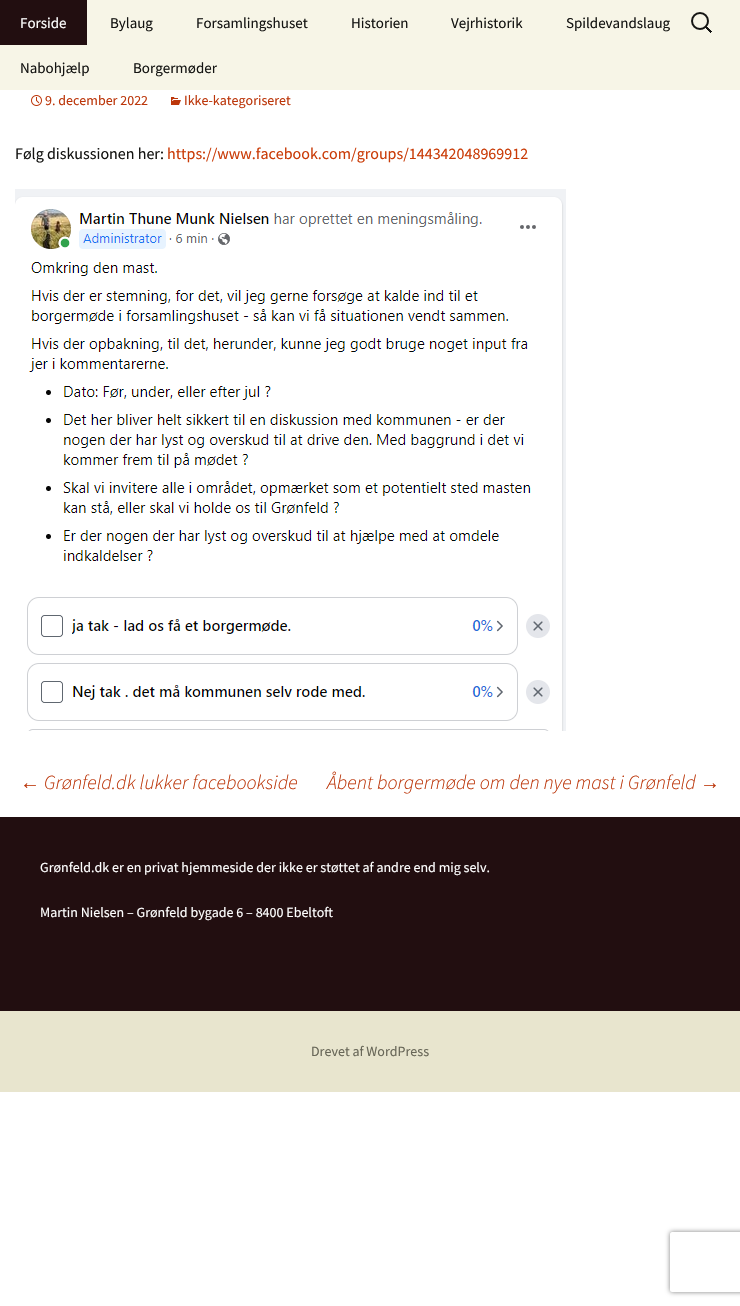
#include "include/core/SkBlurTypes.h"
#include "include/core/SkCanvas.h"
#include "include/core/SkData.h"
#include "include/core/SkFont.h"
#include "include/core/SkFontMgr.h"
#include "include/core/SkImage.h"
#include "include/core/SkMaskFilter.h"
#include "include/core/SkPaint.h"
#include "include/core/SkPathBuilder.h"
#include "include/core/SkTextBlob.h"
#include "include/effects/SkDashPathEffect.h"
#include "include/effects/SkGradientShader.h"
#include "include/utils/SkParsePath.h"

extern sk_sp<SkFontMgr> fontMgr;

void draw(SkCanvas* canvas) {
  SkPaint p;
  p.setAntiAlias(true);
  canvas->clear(SK_ColorWHITE);
  p.setColor(SkColorSetRGB(247, 245, 231));
  canvas->drawRect(SkRect::MakeLTRB(0, 0, 740, 90), p);
  p.setColor(SkColorSetRGB(34, 14, 16));
  canvas->drawRect(SkRect::MakeLTRB(0, 0, 87, 45), p);
  canvas->drawImageRect(SkImages::DeferredFromEncodedData(SkData::MakeFromFileName("images/1.png")), SkRect::MakeLTRB(691, 12, 712, 33), SkSamplingOptions());
  canvas->drawImageRect(SkImages::DeferredFromEncodedData(SkData::MakeFromFileName("images/2.png")), SkRect::MakeLTRB(31, 95, 42, 106), SkSamplingOptions());
  canvas->drawImageRect(SkImages::DeferredFromEncodedData(SkData::MakeFromFileName("images/3.png")), SkRect::MakeLTRB(171, 97, 181, 105), SkSamplingOptions());
  canvas->drawImageRect(SkImages::DeferredFromEncodedData(SkData::MakeFromFileName("images/4.png")), SkRect::MakeLTRB(15, 189, 566, 731), SkSamplingOptions());
  p.setColor(SkColorSetRGB(232, 229, 206));
  canvas->drawRect(SkRect::MakeLTRB(0, 1011, 740, 1092), p);
  p.setColor(SkColorSetRGB(34, 14, 16));
  canvas->drawRect(SkRect::MakeLTRB(0, 817, 740, 1011), p);
  canvas->save();
  canvas->clipPath(SkPathBuilder(SkPathFillType::kEvenOdd).moveTo(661, 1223).lineTo(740, 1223).lineTo(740, 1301).lineTo(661, 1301).close().moveTo(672, 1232).lineTo(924, 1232).cubicTo(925, 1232, 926, 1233, 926, 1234).lineTo(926, 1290).cubicTo(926, 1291, 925, 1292, 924, 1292).lineTo(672, 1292).cubicTo(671, 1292, 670, 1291, 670, 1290).lineTo(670, 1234).cubicTo(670, 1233, 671, 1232, 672, 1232).close().detach(), true);
  p.setColor(SkColorSetRGB(128, 128, 128));
  p.setMaskFilter(SkMaskFilter::MakeBlur(kNormal_SkBlurStyle, 2.5f));
  canvas->drawRoundRect(SkRect::MakeLTRB(670, 1232, 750, 1292), 2, 2, p);
  p.setMaskFilter(nullptr);
  canvas->restore();
  SkFont font1(fontMgr->matchFamilyStyle("Source Sans Pro", SkFontStyle::Normal()), 15);
  font1.setSubpixel(true);
  p.setColor(SK_ColorWHITE);
  canvas->drawString("Forside", 20, 28, font1, p);
  p.setColor(SkColorSetRGB(20, 20, 18));
  canvas->drawString("Bylaug", 110, 28, font1, p);
  canvas->drawString("Forsamlingshuset", 196, 28, font1, p);
  canvas->drawString("Historien", 351, 28, font1, p);
  canvas->drawString("Vejrhistorik", 451, 28, font1, p);
  canvas->drawString("Spildevandslaug", 566, 28, font1, p);
  canvas->drawString("Nabohjælp", 20, 73, font1, p);
  canvas->drawString("Borgermøder", 133, 73, font1, p);
  SkFont font2(fontMgr->matchFamilyStyle("Source Sans Pro", SkFontStyle::Normal()), 14);
  font2.setSubpixel(true);
  p.setColor(SkColorSetRGB(188, 54, 10));
  canvas->drawString("9. december 2022", 45, 105, font2, p);
  canvas->drawString("Ikke-kategoriseret", 184, 105, font2, p);
  SkFont font3(fontMgr->matchFamilyStyle("Source Sans Pro", SkFontStyle::Normal()), 16);
  font3.setSubpixel(true);
  p.setColor(SkColorSetRGB(20, 20, 18));
  canvas->drawString("Følg diskussionen her:", 15, 159, font3, p);
  p.setColor(SkColorSetRGB(202, 60, 8));
  canvas->drawString("https://www.facebook.com/groups/144342048969912", 167, 159, font3, p);
  SkFont font4(fontMgr->matchFamilyStyle("Liberation Sans", SkFontStyle::Italic()), 20);
  font4.setSubpixel(true);
  p.setColor(SkColorSetRGB(188, 54, 10));
  canvas->drawString("←", 20, 789, font4, p);
  SkFont font5(fontMgr->matchFamilyStyle("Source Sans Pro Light", SkFontStyle(300, SkFontStyle::kNormal_Width, SkFontStyle::kItalic_Slant)), 20);
  font5.setSubpixel(true);
  canvas->drawString("Grønfeld.dk lukker facebookside", 44, 789, font5, p);
  canvas->drawString("Åbent borgermøde om den nye mast i Grønfeld", 327, 789, font5, p);
  canvas->drawString("→", 700, 789, font4, p);
  p.setColor(SK_ColorWHITE);
  canvas->drawString("Grønfeld.dk er en privat hjemmeside der ikke er støttet af andre end mig selv.", 40, 872, font2, p);
  canvas->drawString("Martin Nielsen – Grønfeld bygade 6 – 8400 Ebeltoft", 40, 917, font2, p);
  p.setColor(SkColorSetRGB(104, 103, 88));
  canvas->drawString("Drevet af WordPress", 311, 1056, font2, p);
}
